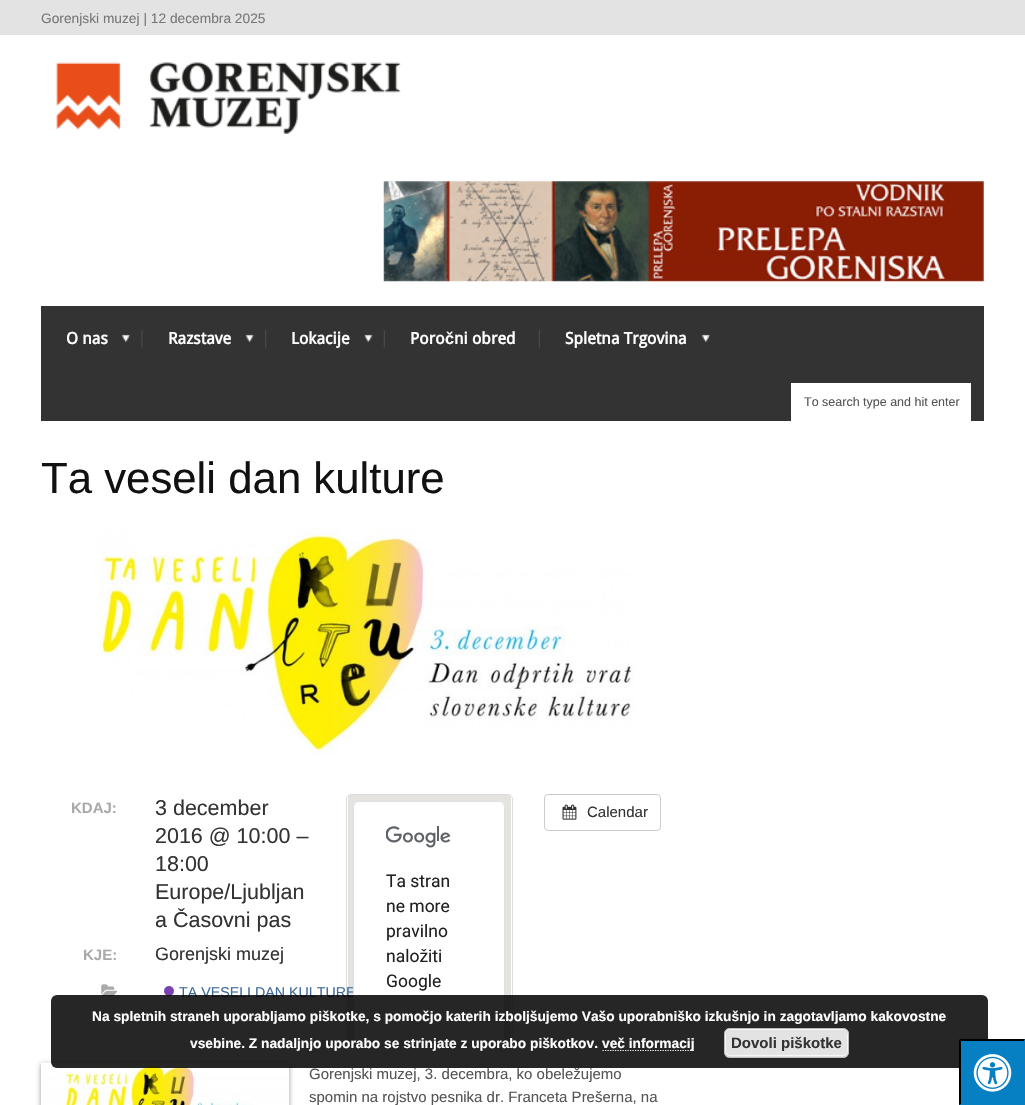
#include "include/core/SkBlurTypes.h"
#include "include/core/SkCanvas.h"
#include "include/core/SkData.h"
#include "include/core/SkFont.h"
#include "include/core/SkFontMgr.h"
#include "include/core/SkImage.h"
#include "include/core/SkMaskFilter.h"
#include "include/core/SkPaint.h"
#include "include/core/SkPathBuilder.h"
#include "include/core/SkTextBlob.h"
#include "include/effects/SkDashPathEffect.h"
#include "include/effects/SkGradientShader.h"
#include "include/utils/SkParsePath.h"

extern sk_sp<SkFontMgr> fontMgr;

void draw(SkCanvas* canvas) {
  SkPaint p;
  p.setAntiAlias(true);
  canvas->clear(SK_ColorWHITE);
  p.setColor(SkColorSetRGB(227, 227, 227));
  canvas->drawRect(SkRect::MakeLTRB(0, 0, 1025, 35), p);
  canvas->drawImageRect(SkImages::DeferredFromEncodedData(SkData::MakeFromFileName("images/1.png")), SkRect::MakeLTRB(56, 62, 401, 134), SkSamplingOptions());
  canvas->drawImageRect(SkImages::DeferredFromEncodedData(SkData::MakeFromFileName("images/2.png")), SkRect::MakeLTRB(383, 181, 984, 282), SkSamplingOptions());
  p.setColor(SkColorSetRGB(51, 51, 51));
  canvas->drawRect(SkRect::MakeLTRB(41, 306, 984, 421), p);
  canvas->drawImageRect(SkImages::DeferredFromEncodedData(SkData::MakeFromFileName("images/3.png")), SkRect::MakeLTRB(141, 330, 143, 348), SkSamplingOptions());
  canvas->drawImageRect(SkImages::DeferredFromEncodedData(SkData::MakeFromFileName("images/4.png")), SkRect::MakeLTRB(121, 334, 130, 343), SkSamplingOptions());
  canvas->drawImageRect(SkImages::DeferredFromEncodedData(SkData::MakeFromFileName("images/5.png")), SkRect::MakeLTRB(265, 330, 267, 348), SkSamplingOptions());
  canvas->drawImageRect(SkImages::DeferredFromEncodedData(SkData::MakeFromFileName("images/6.png")), SkRect::MakeLTRB(245, 334, 254, 343), SkSamplingOptions());
  canvas->drawImageRect(SkImages::DeferredFromEncodedData(SkData::MakeFromFileName("images/7.png")), SkRect::MakeLTRB(383, 330, 385, 348), SkSamplingOptions());
  canvas->drawImageRect(SkImages::DeferredFromEncodedData(SkData::MakeFromFileName("images/8.png")), SkRect::MakeLTRB(364, 334, 373, 343), SkSamplingOptions());
  canvas->drawImageRect(SkImages::DeferredFromEncodedData(SkData::MakeFromFileName("images/7.png")), SkRect::MakeLTRB(538, 330, 540, 348), SkSamplingOptions());
  canvas->drawImageRect(SkImages::DeferredFromEncodedData(SkData::MakeFromFileName("images/4.png")), SkRect::MakeLTRB(701, 334, 710, 343), SkSamplingOptions());
  p.setColor(SK_ColorWHITE);
  canvas->drawRect(SkRect::MakeLTRB(791, 383, 971, 421), p);
  canvas->drawImageRect(SkImages::DeferredFromEncodedData(SkData::MakeFromFileName("images/9.png")), SkRect::MakeLTRB(98, 527, 635, 755), SkSamplingOptions());
  canvas->drawImageRect(SkImages::DeferredFromEncodedData(SkData::MakeFromFileName("images/10.png")), SkRect::MakeLTRB(101, 984, 118, 997), SkSamplingOptions());
  p.setColor(SkColorSetRGB(122, 66, 177));
  canvas->drawCircle(169, 991, 5, p);
  p.setStyle(SkPaint::kStroke_Style);
  p.setStrokeWidth(1);
  p.setColor(SkColorSetRGB(221, 221, 221));
  canvas->drawRoundRect(SkRect::MakeLTRB(346.5f, 794.5f, 512.5f, 1045.5f), 4.5f, 4.5f, p);
  p.setStyle(SkPaint::kFill_Style);
  p.setColor(SkColorSetRGB(229, 227, 223));
  canvas->drawRect(SkRect::MakeLTRB(348, 795, 511, 1045), p);
  p.setStyle(SkPaint::kStroke_Style);
  p.setColor(SkColorSetRGB(204, 204, 204));
  canvas->drawRoundRect(SkRect::MakeLTRB(544.5f, 794.5f, 660.5f, 830.5f), 3.5f, 3.5f, p);
  canvas->drawImageRect(SkImages::DeferredFromEncodedData(SkData::MakeFromFileName("images/12.png")), SkRect::MakeLTRB(562, 804, 577, 820), SkSamplingOptions());
  p.setStyle(SkPaint::kFill_Style);
  p.setColor(SkColorSetARGB(102, 0, 0, 0));
  p.setMaskFilter(SkMaskFilter::MakeBlur(kNormal_SkBlurStyle, 2.5f));
  canvas->drawRect(SkRect::MakeLTRB(41, 1064, 289, 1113), p);
  p.setMaskFilter(nullptr);
  p.setColor(SK_ColorWHITE);
  canvas->drawRect(SkRect::MakeLTRB(41, 1063, 289, 1105), p);
  canvas->drawImageRect(SkImages::DeferredFromEncodedData(SkData::MakeFromFileName("images/13.png")), SkRect::MakeLTRB(42, 1062, 288, 1105), SkSamplingOptions());
  SkFont font1(fontMgr->matchFamilyStyle("Liberation Sans", SkFontStyle::Normal()), 13.75f);
  font1.setSubpixel(true);
  p.setColor(SkColorSetRGB(119, 119, 119));
  canvas->drawString("Gorenjski muzej | 12 decembra 2025", 41, 23, font1, p);
  SkFont font2(fontMgr->matchFamilyStyle("Droid Sans", SkFontStyle::Bold()), 16.25f);
  font2.setSubpixel(true);
  p.setColor(SK_ColorWHITE);
  canvas->drawString("O nas", 66, 344, font2, p);
  canvas->drawString("Razstave", 168, 344, font2, p);
  canvas->drawString("Lokacije", 291, 344, font2, p);
  canvas->drawString("Poro", 410, 344, font2, p);
  SkFont font3(fontMgr->matchFamilyStyle("Liberation Sans", SkFontStyle::Bold()), 16.25f);
  font3.setSubpixel(true);
  canvas->drawString("č", 445, 344, font3, p);
  canvas->drawString("ni obred", 454, 344, font2, p);
  canvas->drawString("Spletna Trgovina", 565, 344, font2, p);
  SkFont font4(fontMgr->matchFamilyStyle("Liberation Sans", SkFontStyle::Normal()), 12.5f);
  font4.setSubpixel(true);
  p.setColor(SkColorSetRGB(85, 85, 85));
  canvas->drawString("To search type and hit enter", 804, 406, font4, p);
  SkFont font5(fontMgr->matchFamilyStyle("Liberation Sans", SkFontStyle::Normal()), 43.75f);
  font5.setSubpixel(true);
  p.setColor(SkColorSetRGB(17, 17, 17));
  canvas->drawString("Ta veseli dan kulture", 41, 493, font5, p);
  SkFont font6(fontMgr->matchFamilyStyle("Liberation Sans", SkFontStyle::Bold()), 15);
  font6.setSubpixel(true);
  p.setColor(SkColorSetRGB(170, 170, 170));
  canvas->drawString("KDAJ:", 71, 813, font6, p);
  SkFont font7(fontMgr->matchFamilyStyle("Liberation Sans", SkFontStyle::Normal()), 21.5f);
  font7.setSubpixel(true);
  p.setColor(SkColorSetRGB(51, 51, 51));
  canvas->drawString("3 december", 155, 815, font7, p);
  canvas->drawString("2016 @ 10:00 –", 155, 843, font7, p);
  canvas->drawString("18:00", 155, 871, font7, p);
  canvas->drawString("Europe/Ljubljan", 155, 899, font7, p);
  canvas->drawString("a Časovni pas", 155, 927, font7, p);
  p.setColor(SkColorSetRGB(170, 170, 170));
  canvas->drawString("KJE:", 83, 960, font6, p);
  SkFont font8(fontMgr->matchFamilyStyle("Liberation Sans", SkFontStyle::Normal()), 18);
  font8.setSubpixel(true);
  p.setColor(SkColorSetRGB(51, 51, 51));
  canvas->drawString("Gorenjski muzej", 155, 960, font8, p);
  SkFont font9(fontMgr->matchFamilyStyle("Liberation Sans", SkFontStyle::Normal()), 14.25f);
  font9.setSubpixel(true);
  p.setColor(SkColorSetRGB(61, 107, 153));
  canvas->drawString("TA VESELI DAN KULTURE", 179, 997, font9, p);
  p.setColor(SK_ColorWHITE);
  canvas->drawPath(SkPathBuilder().moveTo(359, 801).lineTo(499, 801).cubicTo(502.5f, 801, 505, 803.5f, 505, 807).lineTo(505, 1045).lineTo(353, 1045).lineTo(353, 807).cubicTo(353, 803.5f, 355.5f, 801, 359, 801).close().detach(), p);
  SkFont font10(fontMgr->matchFamilyStyle("Liberation Sans", SkFontStyle::Normal()), 15);
  font10.setSubpixel(true);
  p.setColor(SkColorSetRGB(51, 51, 51));
  canvas->drawString("Calendar", 587, 817, font10, p);
  p.setColor(SkColorSetRGB(85, 85, 85));
  canvas->drawString("Gorenjski muzej, 3. decembra, ko obeležujemo", 309, 1079, font10, p);
  canvas->drawString("spomin na rojstvo pesnika dr. Franceta Prešerna, na", 309, 1102, font10, p);
  canvas->save();
  canvas->clipRect(SkRect::MakeLTRB(348, 795, 511, 1045));
  p.setStyle(SkPaint::kStroke_Style);
  p.setColor(SkColorSetARGB(31, 0, 0, 0));
  canvas->drawRoundRect(SkRect::MakeLTRB(353.5f, 801.5f, 504.5f, 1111.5f), 5.5f, 5.5f, p);
  canvas->restore();
  SkFont font11(fontMgr->matchFamilyStyle("Roboto", SkFontStyle::Normal()), 17.5f);
  font11.setSubpixel(true);
  p.setStyle(SkPaint::kFill_Style);
  p.setColor(SkColorSetRGB(33, 33, 33));
  canvas->drawString("Google", 386, 987, font11, p);
  canvas->drawString("naložiti", 386, 962, font11, p);
  canvas->drawString("pravilno", 386, 937, font11, p);
  canvas->drawString("ne more", 386, 912, font11, p);
  canvas->drawString("Ta stran", 386, 887, font11, p);
  canvas->drawImageRect(SkImages::DeferredFromEncodedData(SkData::MakeFromFileName("images/11.png")), SkRect::MakeLTRB(386, 826, 451, 848), SkSamplingOptions());
  p.setColor(SkColorSetARGB(217, 0, 0, 0));
  canvas->drawRoundRect(SkRect::MakeLTRB(51, 995, 988, 1068), 6, 6, p);
  SkFont font12(fontMgr->matchFamilyStyle("Liberation Sans", SkFontStyle::Bold()), 13.75f);
  font12.setSubpixel(true);
  p.setColor(SK_ColorWHITE);
  canvas->drawString("Na spletnih straneh uporabljamo piškotke, s pomočjo katerih izboljšujemo Vašo uporabniško izkušnjo in zagotavljamo kakovostne", 92, 1021, font12, p);
  canvas->drawString("vsebine. Z nadaljnjo uporabo se strinjate z uporabo piškotkov.", 190, 1048, font12, p);
  p.setStyle(SkPaint::kStroke_Style);
  p.setStrokeWidth(1.2f);
  p.setPathEffect(SkDashPathEffect::Make({{1.25f, 1.25f}}, 0));
  canvas->drawPath(SkPathBuilder().moveTo(602.5f, 1050.5f).lineTo(695, 1050.5f).detach(), p);
  p.setPathEffect(nullptr);
  p.setStyle(SkPaint::kFill_Style);
  canvas->drawString("več informacij", 602, 1048, font12, p);
  p.setColor(SkColorSetRGB(227, 227, 227));
  canvas->drawRoundRect(SkRect::MakeLTRB(724, 1028, 849, 1058), 6, 6, p);
  p.setStyle(SkPaint::kStroke_Style);
  p.setStrokeWidth(1);
  p.setColor(SkColorSetRGB(246, 246, 246));
  canvas->drawRoundRect(SkRect::MakeLTRB(725.5f, 1029.5f, 847.5f, 1055.5f), 4.5f, 4.5f, p);
  p.setColor(SkColorSetRGB(187, 187, 187));
  canvas->drawRoundRect(SkRect::MakeLTRB(724.5f, 1028.5f, 848.5f, 1057.5f), 5.5f, 5.5f, p);
  p.setStyle(SkPaint::kFill_Style);
  p.setColor(SkColorSetRGB(51, 51, 51));
  canvas->drawString("Dovoli piškotke", 731, 1048, font6, p);
  p.setColor(SkColorSetRGB(7, 128, 195));
  canvas->drawRect(SkRect::MakeLTRB(959, 1039, 1025, 1105), p);
  p.setColor(SK_ColorBLACK);
  canvas->drawPath(SkPathBuilder().moveTo(959, 1039).lineTo(1025, 1039).lineTo(1024, 1041).lineTo(961, 1041).close().detach(), p);
  p.setColor(SkColorSetRGB(7, 128, 195));
  canvas->drawPath(SkPathBuilder().moveTo(1025, 1039).lineTo(1025, 1105).lineTo(1024, 1104).lineTo(1024, 1041).close().detach(), p);
  p.setColor(SK_ColorBLACK);
  canvas->drawPath(SkPathBuilder().moveTo(959, 1105).lineTo(959, 1039).lineTo(961, 1041).lineTo(961, 1104).close().detach(), p);
  canvas->drawImageRect(SkImages::DeferredFromEncodedData(SkData::MakeFromFileName("images/14.png")), SkRect::MakeLTRB(973, 1054, 1012, 1092), SkSamplingOptions());
}
